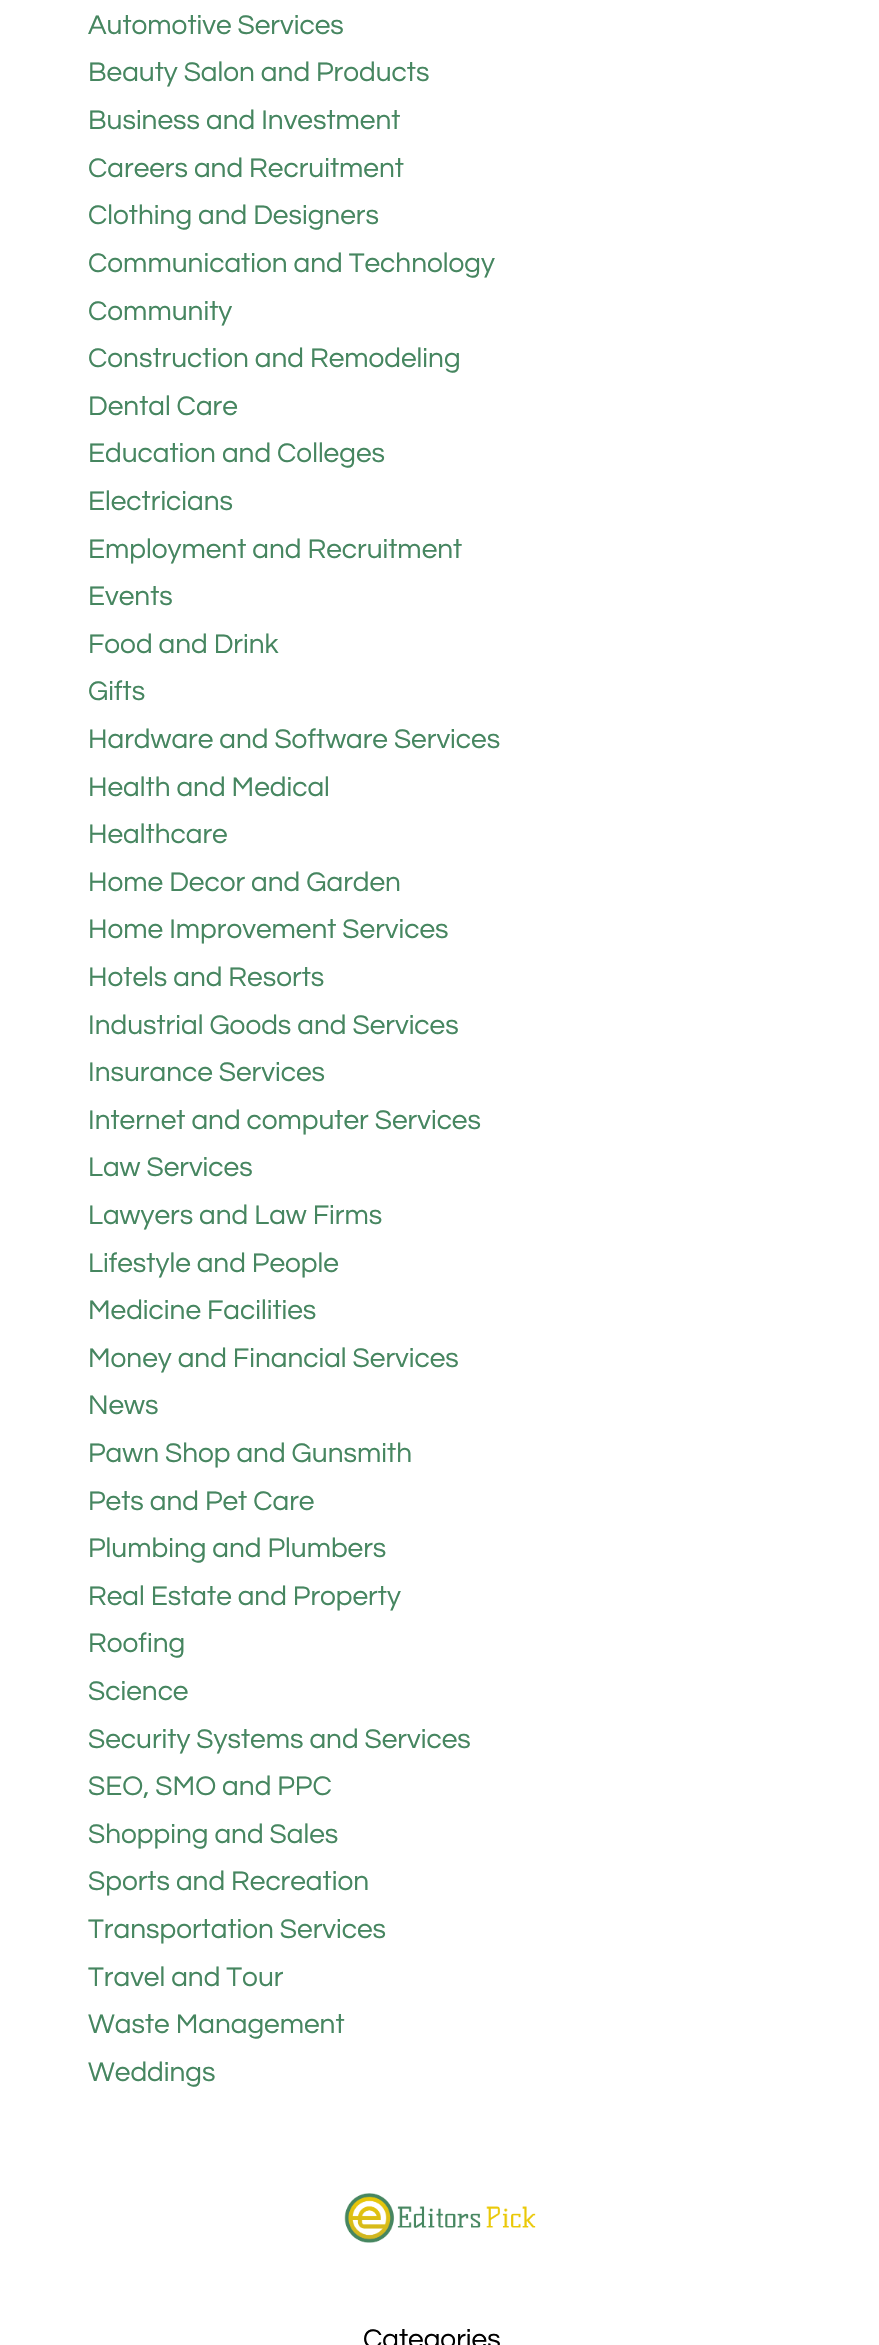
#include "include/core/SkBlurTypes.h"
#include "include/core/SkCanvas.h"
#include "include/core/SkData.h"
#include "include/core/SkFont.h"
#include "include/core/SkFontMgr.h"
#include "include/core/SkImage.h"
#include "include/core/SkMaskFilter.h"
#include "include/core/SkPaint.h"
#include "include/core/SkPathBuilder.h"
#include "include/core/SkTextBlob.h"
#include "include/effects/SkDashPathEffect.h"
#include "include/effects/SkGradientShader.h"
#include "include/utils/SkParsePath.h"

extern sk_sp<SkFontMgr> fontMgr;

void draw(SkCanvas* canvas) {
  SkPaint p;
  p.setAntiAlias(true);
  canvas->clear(SK_ColorWHITE);
  canvas->drawImageRect(SkImages::DeferredFromEncodedData(SkData::MakeFromFileName("images/1.png")), SkRect::MakeLTRB(344, 2193, 536, 2243), SkSamplingOptions());
  SkFont font1(fontMgr->matchFamilyStyle("Questrial", SkFontStyle::Normal()), 28);
  font1.setSubpixel(true);
  p.setColor(SkColorSetRGB(70, 134, 96));
  canvas->drawString("Automotive Services", 88, 34, font1, p);
  canvas->drawString("Beauty Salon and Products", 88, 81, font1, p);
  canvas->drawString("Business and Investment", 88, 129, font1, p);
  canvas->drawString("Careers and Recruitment", 88, 177, font1, p);
  canvas->drawString("Clothing and Designers", 88, 224, font1, p);
  canvas->drawString("Communication and Technology", 88, 272, font1, p);
  canvas->drawString("Community", 88, 320, font1, p);
  canvas->drawString("Construction and Remodeling", 88, 367, font1, p);
  canvas->drawString("Dental Care", 88, 415, font1, p);
  canvas->drawString("Education and Colleges", 88, 462, font1, p);
  canvas->drawString("Electricians", 88, 510, font1, p);
  canvas->drawString("Employment and Recruitment", 88, 558, font1, p);
  canvas->drawString("Events", 88, 605, font1, p);
  canvas->drawString("Food and Drink", 88, 653, font1, p);
  canvas->drawString("Gifts", 88, 700, font1, p);
  canvas->drawString("Hardware and Software Services", 88, 748, font1, p);
  canvas->drawString("Health and Medical", 88, 796, font1, p);
  canvas->drawString("Healthcare", 88, 843, font1, p);
  canvas->drawString("Home Decor and Garden", 88, 891, font1, p);
  canvas->drawString("Home Improvement Services", 88, 938, font1, p);
  canvas->drawString("Hotels and Resorts", 88, 986, font1, p);
  canvas->drawString("Industrial Goods and Services", 88, 1034, font1, p);
  canvas->drawString("Insurance Services", 88, 1081, font1, p);
  canvas->drawString("Internet and computer Services", 88, 1129, font1, p);
  canvas->drawString("Law Services", 88, 1176, font1, p);
  canvas->drawString("Lawyers and Law Firms", 88, 1224, font1, p);
  canvas->drawString("Lifestyle and People", 88, 1272, font1, p);
  canvas->drawString("Medicine Facilities", 88, 1319, font1, p);
  canvas->drawString("Money and Financial Services", 88, 1367, font1, p);
  canvas->drawString("News", 88, 1414, font1, p);
  canvas->drawString("Pawn Shop and Gunsmith", 88, 1462, font1, p);
  canvas->drawString("Pets and Pet Care", 88, 1510, font1, p);
  canvas->drawString("Plumbing and Plumbers", 88, 1557, font1, p);
  canvas->drawString("Real Estate and Property", 88, 1605, font1, p);
  canvas->drawString("Roofing", 88, 1652, font1, p);
  canvas->drawString("Science", 88, 1700, font1, p);
  canvas->drawString("Security Systems and Services", 88, 1748, font1, p);
  canvas->drawString("SEO, SMO and PPC", 88, 1795, font1, p);
  canvas->drawString("Shopping and Sales", 88, 1843, font1, p);
  canvas->drawString("Sports and Recreation", 88, 1890, font1, p);
  canvas->drawString("Transportation Services", 88, 1938, font1, p);
  canvas->drawString("Travel and Tour", 88, 1986, font1, p);
  canvas->drawString("Waste Management", 88, 2033, font1, p);
  canvas->drawString("Weddings", 88, 2081, font1, p);
  p.setColor(SK_ColorBLACK);
  canvas->drawString("Categories", 363, 2348, font1, p);
}
